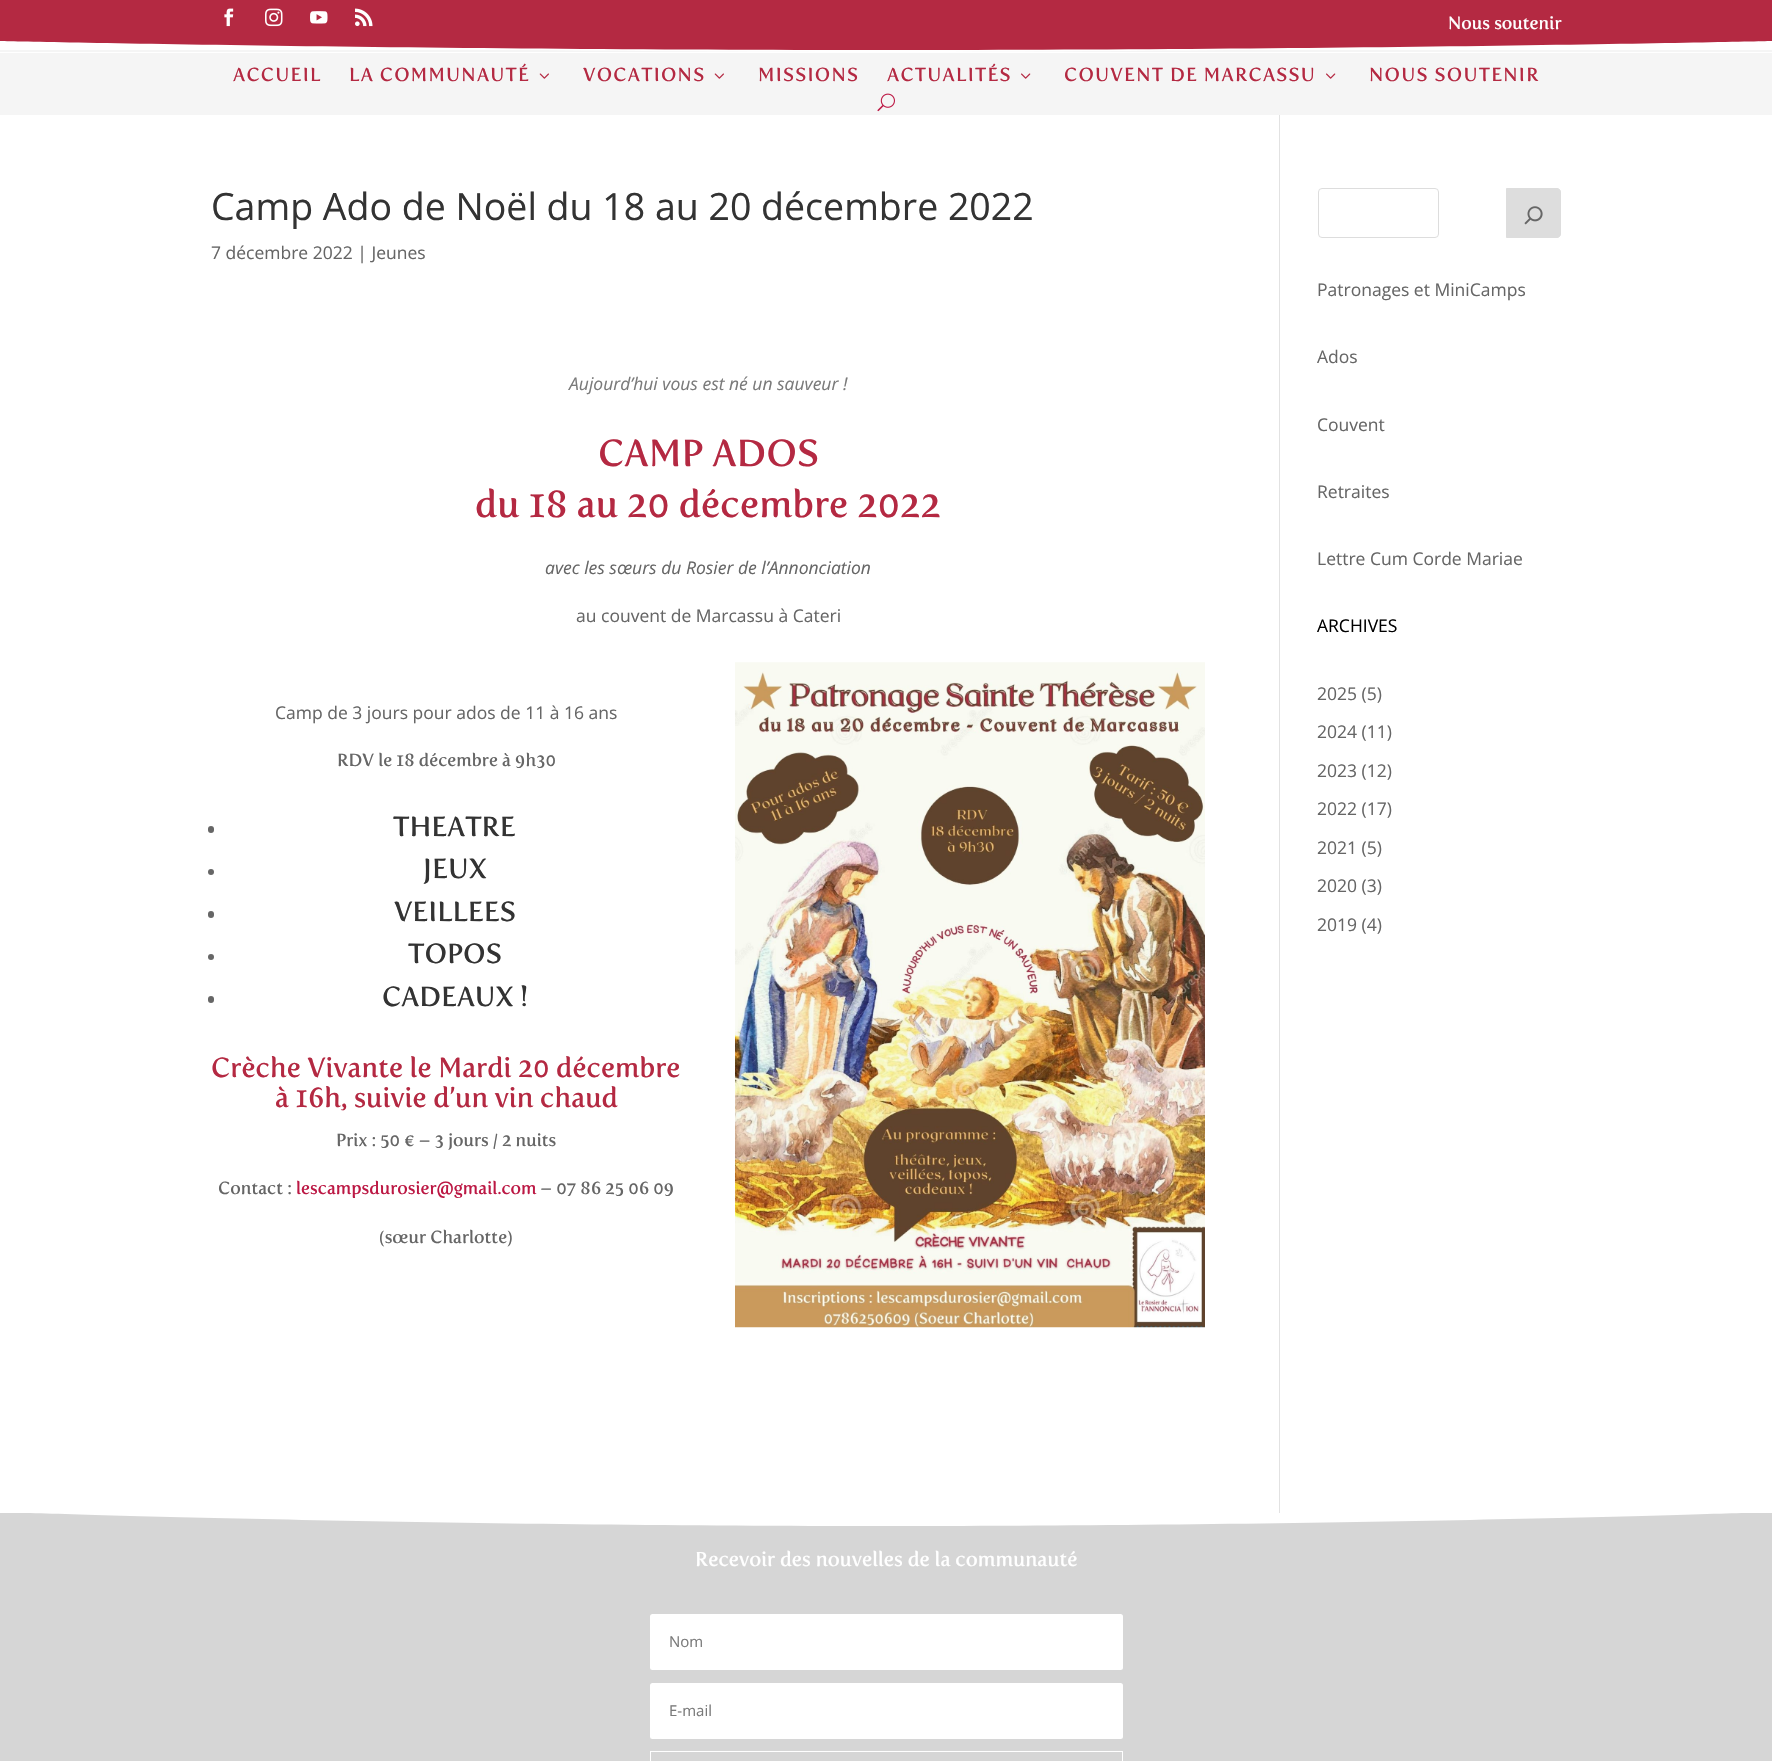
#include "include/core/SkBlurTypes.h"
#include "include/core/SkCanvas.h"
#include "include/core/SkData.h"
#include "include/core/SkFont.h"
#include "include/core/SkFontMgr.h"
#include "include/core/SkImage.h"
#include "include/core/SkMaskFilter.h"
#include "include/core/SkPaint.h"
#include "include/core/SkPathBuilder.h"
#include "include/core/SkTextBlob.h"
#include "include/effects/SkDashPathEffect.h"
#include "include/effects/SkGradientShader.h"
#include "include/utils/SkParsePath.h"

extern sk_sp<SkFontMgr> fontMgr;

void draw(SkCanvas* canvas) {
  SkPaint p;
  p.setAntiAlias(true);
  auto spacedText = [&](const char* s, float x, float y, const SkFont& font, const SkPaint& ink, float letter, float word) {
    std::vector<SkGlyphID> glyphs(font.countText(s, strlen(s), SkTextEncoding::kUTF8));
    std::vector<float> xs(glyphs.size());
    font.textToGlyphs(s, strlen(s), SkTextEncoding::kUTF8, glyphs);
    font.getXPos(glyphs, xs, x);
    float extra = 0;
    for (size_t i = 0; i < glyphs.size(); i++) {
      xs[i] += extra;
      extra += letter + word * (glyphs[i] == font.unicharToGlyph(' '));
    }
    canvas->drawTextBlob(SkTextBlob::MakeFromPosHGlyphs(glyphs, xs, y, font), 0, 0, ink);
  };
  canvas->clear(SK_ColorWHITE);
  p.setColor(SkColorSetRGB(245, 245, 245));
  canvas->drawPath(SkPathBuilder().moveTo(1772, 52).lineTo(1772, 39).cubicTo(1772, 39, 1376, 52, 886, 52).cubicTo(397, 52, 0, 39, 0, 39).lineTo(0, 52).close().detach(), p);
  p.setColor(SkColorSetRGB(180, 41, 66));
  canvas->drawRect(SkRect::MakeLTRB(0, 0, 1772, 50), p);
  canvas->drawImageRect(SkImages::DeferredFromEncodedData(SkData::MakeFromFileName("images/1.png")), SkRect::MakeLTRB(224, 8, 234, 27), SkSamplingOptions());
  canvas->drawImageRect(SkImages::DeferredFromEncodedData(SkData::MakeFromFileName("images/2.png")), SkRect::MakeLTRB(265, 8, 283, 27), SkSamplingOptions());
  canvas->drawImageRect(SkImages::DeferredFromEncodedData(SkData::MakeFromFileName("images/3.png")), SkRect::MakeLTRB(310, 11, 328, 24), SkSamplingOptions());
  canvas->drawImageRect(SkImages::DeferredFromEncodedData(SkData::MakeFromFileName("images/4.png")), SkRect::MakeLTRB(355, 8, 373, 27), SkSamplingOptions());
  p.setColor(SK_ColorWHITE);
  canvas->drawPath(SkPathBuilder().moveTo(1772, 50).lineTo(1772, 41).cubicTo(1772, 41, 1376, 50, 886, 50).cubicTo(397, 50, 0, 41, 0, 41).lineTo(0, 50).close().detach(), p);
  p.setColor(SkColorSetRGB(245, 245, 245));
  canvas->drawRect(SkRect::MakeLTRB(0, 53, 1772, 115), p);
  canvas->drawImageRect(SkImages::DeferredFromEncodedData(SkData::MakeFromFileName("images/5.png")), SkRect::MakeLTRB(539, 73, 549, 79), SkSamplingOptions());
  canvas->drawImageRect(SkImages::DeferredFromEncodedData(SkData::MakeFromFileName("images/5.png")), SkRect::MakeLTRB(714, 73, 724, 79), SkSamplingOptions());
  canvas->drawImageRect(SkImages::DeferredFromEncodedData(SkData::MakeFromFileName("images/6.png")), SkRect::MakeLTRB(1021, 73, 1031, 79), SkSamplingOptions());
  canvas->drawImageRect(SkImages::DeferredFromEncodedData(SkData::MakeFromFileName("images/6.png")), SkRect::MakeLTRB(1326, 73, 1336, 79), SkSamplingOptions());
  canvas->drawImageRect(SkImages::DeferredFromEncodedData(SkData::MakeFromFileName("images/7.png")), SkRect::MakeLTRB(877, 93, 895, 112), SkSamplingOptions());
  p.setColor(SkColorSetRGB(226, 226, 226));
  canvas->drawRect(SkRect::MakeLTRB(1279, 115, 1280, 1513), p);
  p.setColor(SkColorSetRGB(102, 102, 102));
  canvas->drawRoundRect(SkRect::MakeLTRB(208, 826, 214, 833), 3, 3, p);
  canvas->drawCircle(211, 872, 3, p);
  canvas->drawRoundRect(SkRect::MakeLTRB(208, 911, 214, 918), 3, 3, p);
  canvas->drawCircle(211, 957, 3, p);
  canvas->drawRoundRect(SkRect::MakeLTRB(208, 996, 214, 1003), 3, 3, p);
  canvas->drawImageRect(SkImages::DeferredFromEncodedData(SkData::MakeFromFileName("images/8.png")), SkRect::MakeLTRB(735, 662, 1205, 1328), SkSamplingOptions());
  p.setStyle(SkPaint::kStroke_Style);
  p.setStrokeWidth(1);
  p.setColor(SkColorSetRGB(221, 221, 221));
  canvas->drawRoundRect(SkRect::MakeLTRB(1318.5f, 188.5f, 1438.5f, 237.5f), 3.5f, 3.5f, p);
  p.setStyle(SkPaint::kFill_Style);
  canvas->drawPath(SkPathBuilder().moveTo(1506.5f, 188.5f).lineTo(1557, 188.5f).cubicTo(1559, 188.5f, 1560.5f, 190, 1560.5f, 192).lineTo(1560.5f, 234).cubicTo(1560.5f, 236, 1559, 237.5f, 1557, 237.5f).lineTo(1506.5f, 237.5f).close().detach(), p);
  p.setStyle(SkPaint::kStroke_Style);
  canvas->drawPath(SkPathBuilder().moveTo(1506.5f, 188.5f).lineTo(1557, 188.5f).cubicTo(1559, 188.5f, 1560.5f, 190, 1560.5f, 192).lineTo(1560.5f, 234).cubicTo(1560.5f, 236, 1559, 237.5f, 1557, 237.5f).lineTo(1506.5f, 237.5f).close().detach(), p);
  canvas->drawImageRect(SkImages::DeferredFromEncodedData(SkData::MakeFromFileName("images/9.png")), SkRect::MakeLTRB(1524, 206, 1543, 225), SkSamplingOptions());
  p.setStyle(SkPaint::kFill_Style);
  p.setColor(SkColorSetRGB(214, 214, 214));
  canvas->drawRect(SkRect::MakeLTRB(0, 1513, 1772, 1761), p);
  canvas->save();
  canvas->clipRect(SkRect::MakeLTRB(0, 1513, 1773, 1526));
  p.setColor(SK_ColorWHITE);
  canvas->drawPath(SkPathBuilder().moveTo(886, 1526).cubicTo(397, 1526, 0, 1512, 0, 1512).lineTo(1772, 1512).cubicTo(1772, 1512, 1376, 1526, 886, 1526).close().detach(), p);
  canvas->restore();
  canvas->drawRoundRect(SkRect::MakeLTRB(650, 1614, 1123, 1670), 2.5f, 2.5f, p);
  canvas->drawRoundRect(SkRect::MakeLTRB(650, 1683, 1123, 1739), 2.5f, 2.5f, p);
  p.setStyle(SkPaint::kStroke_Style);
  canvas->drawRect(SkRect::MakeLTRB(650.5f, 1751.5f, 1122.5f, 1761.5f), p);
  SkFont font1(fontMgr->matchFamilyStyle("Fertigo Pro", SkFontStyle::Normal()), 17.5f);
  font1.setSubpixel(true);
  p.setStyle(SkPaint::kFill_Style);
  canvas->drawString("Nous soutenir", 1448, 29, font1, p);
  SkFont font2(fontMgr->matchFamilyStyle("Fertigo Pro", SkFontStyle::Normal()), 18.75f);
  font2.setSubpixel(true);
  p.setColor(SkColorSetRGB(180, 41, 66));
  spacedText("ACCUEIL", 233, 81, font2, p, 1.25f, 0);
  spacedText("LA COMMUNAUTÉ", 349, 81, font2, p, 1.25f, 0);
  spacedText("VOCATIONS", 583, 81, font2, p, 1.25f, 0);
  spacedText("MISSIONS", 758, 81, font2, p, 1.25f, 0);
  spacedText("ACTUALITÉS", 887, 81, font2, p, 1.25f, 0);
  spacedText("COUVENT DE MARCASSU", 1064, 81, font2, p, 1.25f, 0);
  spacedText("NOUS SOUTENIR", 1369, 81, font2, p, 1.25f, 0);
  SkFont font3(fontMgr->matchFamilyStyle("Open Sans", SkFontStyle::Normal()), 37.5f);
  font3.setSubpixel(true);
  p.setColor(SkColorSetRGB(51, 51, 51));
  canvas->drawString("Camp Ado de Noël du 18 au 20 décembre 2022", 211, 220, font3, p);
  SkFont font4(fontMgr->matchFamilyStyle("Open Sans", SkFontStyle::Normal()), 17.5f);
  font4.setSubpixel(true);
  p.setColor(SkColorSetRGB(102, 102, 102));
  canvas->drawString("7 décembre 2022 | Jeunes", 211, 259, font4, p);
  SkFont font5(fontMgr->matchFamilyStyle("Open Sans", SkFontStyle::Italic()), 17.5f);
  font5.setSubpixel(true);
  p.setColor(SkColorSetRGB(122, 122, 122));
  canvas->drawString("Aujourd’hui vous est né un sauveur !", 569, 390, font5, p);
  SkFont font6(fontMgr->matchFamilyStyle("Fertigo Pro", SkFontStyle::Normal()), 37.5f);
  font6.setSubpixel(true);
  p.setColor(SkColorSetRGB(180, 41, 66));
  canvas->drawString("CAMP ADOS", 598, 466, font6, p);
  canvas->drawString("du 18 au 20 décembre 2022", 475, 517, font6, p);
  p.setColor(SkColorSetRGB(102, 102, 102));
  canvas->drawString("avec les sœurs du Rosier de l’Annonciation", 545, 574, font5, p);
  canvas->drawString("au couvent de Marcassu à Cateri", 576, 622, font4, p);
  canvas->drawString("Camp de 3 jours pour ados de 11 à 16 ans", 275, 719, font4, p);
  canvas->drawString("RDV le 18 décembre à 9h30", 337, 766, font1, p);
  SkFont font7(fontMgr->matchFamilyStyle("Fertigo Pro", SkFontStyle::Normal()), 27.5f);
  font7.setSubpixel(true);
  p.setColor(SkColorSetRGB(51, 51, 51));
  canvas->drawString("THEATRE", 393, 836, font7, p);
  canvas->drawString("JEUX", 423, 878, font7, p);
  canvas->drawString("VEILLEES", 394, 921, font7, p);
  canvas->drawString("TOPOS", 408, 963, font7, p);
  canvas->drawString("CADEAUX !", 382, 1006, font7, p);
  p.setColor(SkColorSetRGB(180, 41, 66));
  canvas->drawString("Crèche Vivante le Mardi 20 décembre", 211, 1077, font7, p);
  canvas->drawString("à 16h, suivie d’un vin chaud", 275, 1107, font7, p);
  p.setColor(SkColorSetRGB(102, 102, 102));
  canvas->drawString("Prix : 50 € – 3 jours / 2 nuits", 336, 1146, font1, p);
  canvas->drawString("Contact :", 218, 1194, font1, p);
  p.setColor(SkColorSetRGB(188, 24, 68));
  canvas->drawString("lescampsdurosier@gmail.com", 296, 1194, font1, p);
  p.setColor(SkColorSetRGB(102, 102, 102));
  canvas->drawString("– 07 86 25 06 09", 540, 1194, font1, p);
  canvas->drawString("(sœur Charlotte)", 379, 1243, font1, p);
  canvas->drawString("Patronages et MiniCamps", 1317, 296, font4, p);
  canvas->drawString("Ados", 1317, 363, font4, p);
  canvas->drawString("Couvent", 1317, 431, font4, p);
  canvas->drawString("Retraites", 1317, 498, font4, p);
  canvas->drawString("Lettre Cum Corde Mariae", 1317, 565, font4, p);
  p.setColor(SK_ColorBLACK);
  canvas->drawString("ARCHIVES", 1317, 632, font4, p);
  p.setColor(SkColorSetRGB(102, 102, 102));
  canvas->drawString("2025 (5)", 1317, 700, font4, p);
  canvas->drawString("2024 (11)", 1317, 738, font4, p);
  canvas->drawString("2023 (12)", 1317, 777, font4, p);
  canvas->drawString("2022 (17)", 1317, 815, font4, p);
  canvas->drawString("2021 (5)", 1317, 854, font4, p);
  canvas->drawString("2020 (3)", 1317, 892, font4, p);
  canvas->drawString("2019 (4)", 1317, 931, font4, p);
  SkFont font8(fontMgr->matchFamilyStyle("Fertigo Pro", SkFontStyle::Normal()), 20);
  font8.setSubpixel(true);
  p.setColor(SK_ColorWHITE);
  canvas->drawString("Recevoir des nouvelles de la communauté", 695, 1566, font8, p);
  SkFont font9(fontMgr->matchFamilyStyle("Open Sans", SkFontStyle::Normal()), 15);
  font9.setSubpixel(true);
  p.setColor(SkColorSetRGB(122, 122, 122));
  canvas->drawString("Nom", 669, 1647, font9, p);
  canvas->drawString("E-mail", 669, 1716, font9, p);
}
